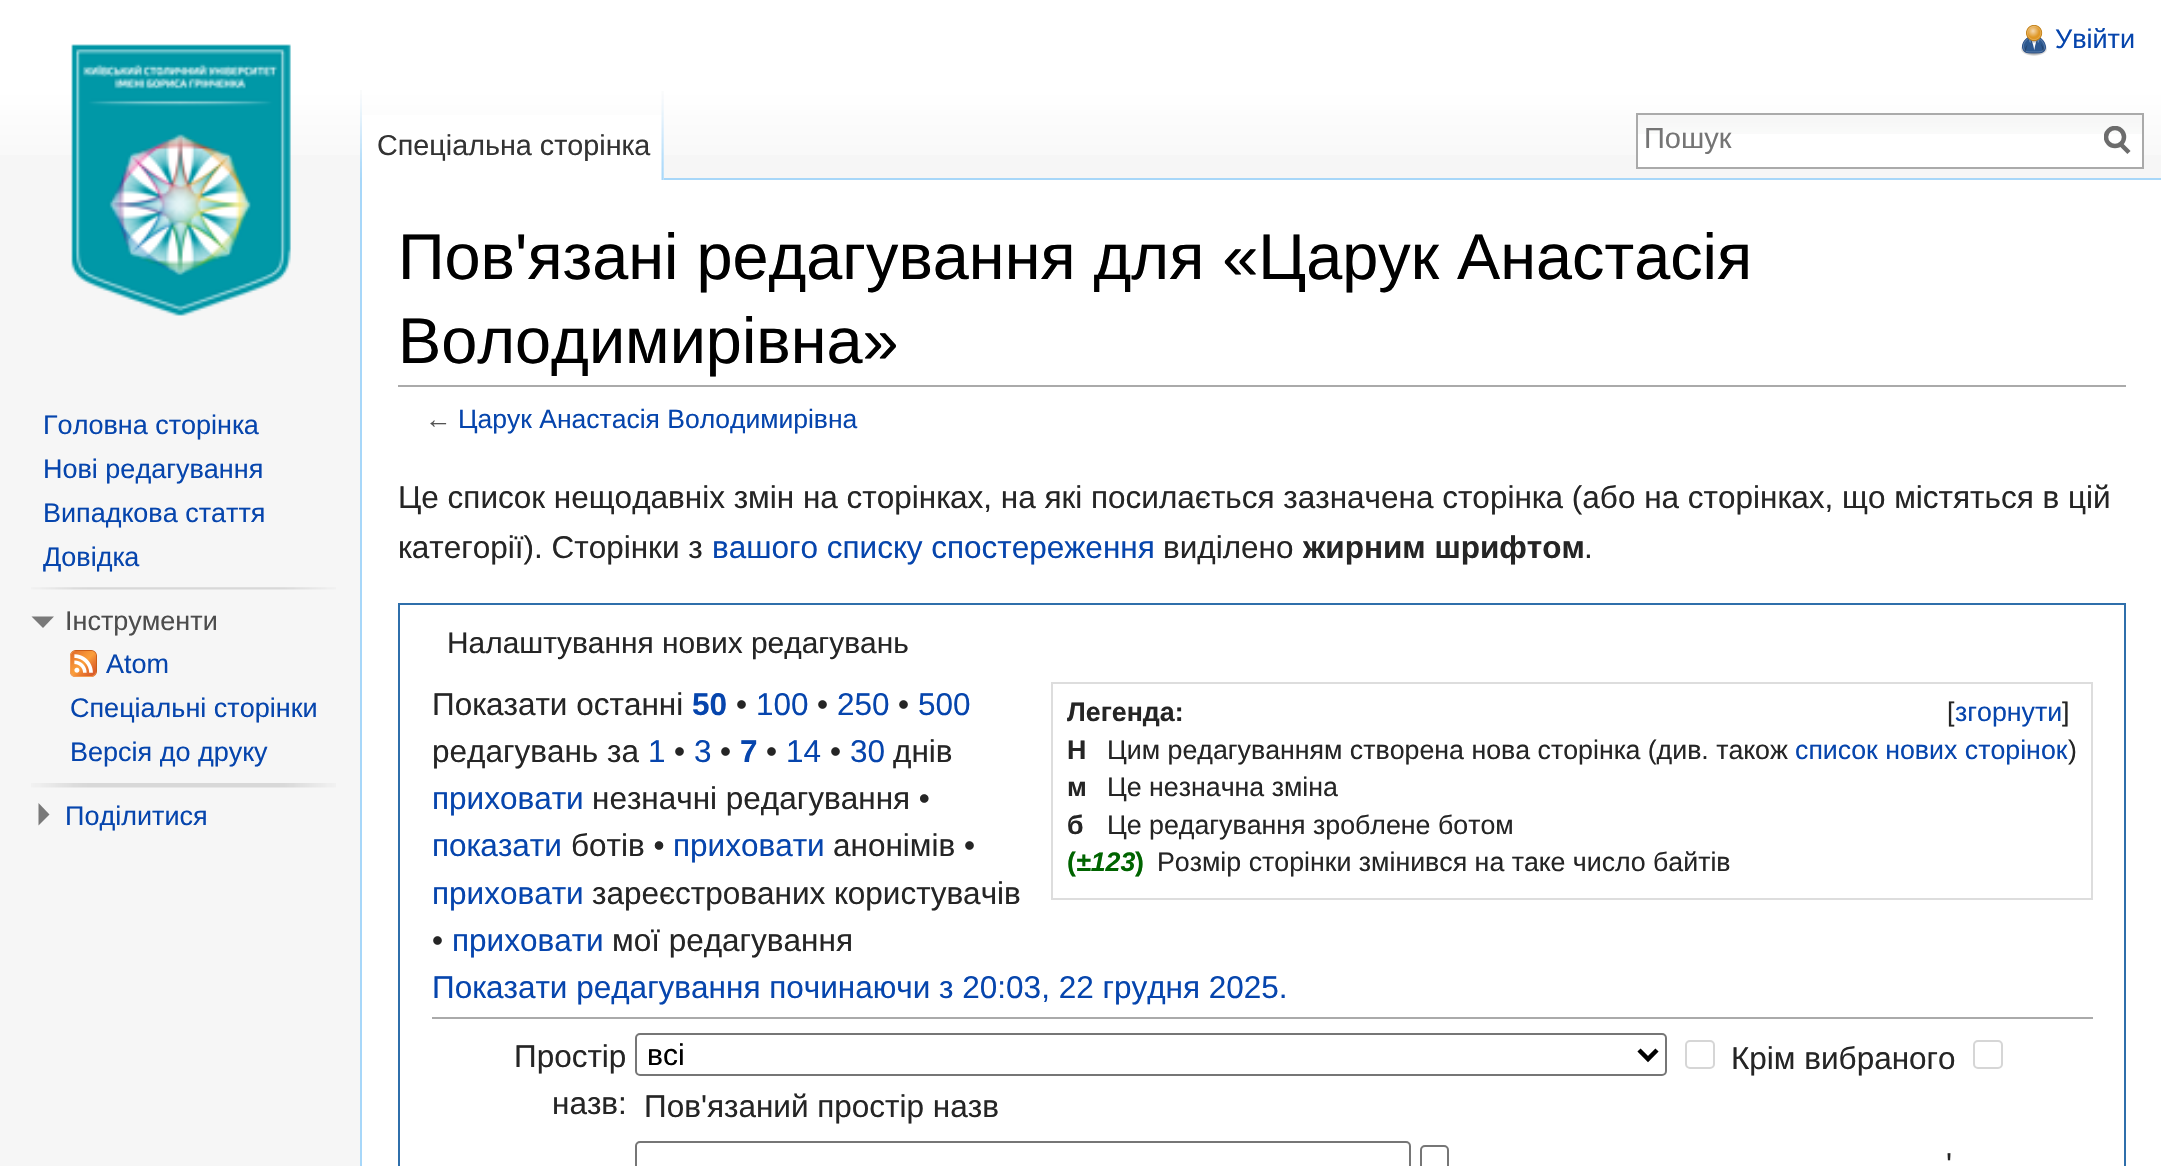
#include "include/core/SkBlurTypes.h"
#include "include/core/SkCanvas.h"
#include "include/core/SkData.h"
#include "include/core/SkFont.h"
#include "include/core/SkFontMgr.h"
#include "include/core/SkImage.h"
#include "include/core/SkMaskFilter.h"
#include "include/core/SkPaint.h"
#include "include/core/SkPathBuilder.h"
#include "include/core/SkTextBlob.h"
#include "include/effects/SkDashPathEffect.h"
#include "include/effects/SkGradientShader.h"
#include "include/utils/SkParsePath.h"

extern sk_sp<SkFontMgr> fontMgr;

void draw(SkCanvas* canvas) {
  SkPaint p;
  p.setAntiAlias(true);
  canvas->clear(SkColorSetRGB(246, 246, 246));
  {
    const SkColor colors[] = {SK_ColorWHITE, SkColorSetRGB(246, 246, 246)};
    const float stops[] = {0.5f, 1};
    const SkPoint ends[] = {{1081, 0}, {1081, 180}};
    p.setShader(SkGradientShader::MakeLinear(ends, colors, stops, 2, SkTileMode::kClamp));
    p.setAlpha(255);
  }
  canvas->drawRect(SkRect::MakeLTRB(0, 0, 2161, 155), p);
  canvas->drawImageRect(SkImages::DeferredFromEncodedData(SkData::MakeFromFileName("images/1.png")), SkRect::MakeLTRB(2021, 25, 2047, 56), SkSamplingOptions());
  canvas->drawImageRect(SkImages::DeferredFromEncodedData(SkData::MakeFromFileName("images/2.png")), SkRect::MakeLTRB(360, 90, 362, 178), SkSamplingOptions());
  p.setShader(nullptr);
  p.setColor(SK_ColorWHITE);
  canvas->drawRect(SkRect::MakeLTRB(362, 115, 664, 180), p);
  canvas->drawImageRect(SkImages::DeferredFromEncodedData(SkData::MakeFromFileName("images/3.png")), SkRect::MakeLTRB(661, 91, 664, 180), SkSamplingOptions());
  canvas->drawRect(SkRect::MakeLTRB(1638, 134, 2142, 167), p);
  canvas->drawImageRect(SkImages::DeferredFromEncodedData(SkData::MakeFromFileName("images/4.png")), SkRect::MakeLTRB(1638, 115, 2142, 134), SkSamplingOptions());
  p.setStyle(SkPaint::kStroke_Style);
  p.setStrokeWidth(2);
  p.setColor(SkColorSetRGB(170, 170, 170));
  canvas->drawRect(SkRect::MakeLTRB(1637, 114, 2143, 168), p);
  p.setStrokeWidth(4.5f);
  p.setColor(SkColorSetRGB(108, 108, 108));
  canvas->drawPath(SkPathBuilder().moveTo(2129, 152.5f).lineTo(2120, 143.5f).detach(), p);
  canvas->save();
  canvas->clipRect(SkRect::MakeLTRB(2104, 126, 2131, 155));
  canvas->drawCircle(2115, 137, 9, p);
  canvas->restore();
  canvas->drawImageRect(SkImages::DeferredFromEncodedData(SkData::MakeFromFileName("images/5.png")), SkRect::MakeLTRB(71, 44, 291, 316), SkSamplingOptions());
  canvas->drawImageRect(SkImages::DeferredFromEncodedData(SkData::MakeFromFileName("images/6.png")), SkRect::MakeLTRB(31, 587, 336, 590), SkSamplingOptions());
  p.setStyle(SkPaint::kFill_Style);
  p.setColor(SkColorSetRGB(121, 121, 121));
  canvas->drawPath(SkPathBuilder().moveTo(54, 616.5f).lineTo(43, 628).lineTo(31.5f, 616.5f).close().detach(), p);
  canvas->drawImageRect(SkImages::DeferredFromEncodedData(SkData::MakeFromFileName("images/7.png")), SkRect::MakeLTRB(70, 650, 97, 677), SkSamplingOptions());
  canvas->drawImageRect(SkImages::DeferredFromEncodedData(SkData::MakeFromFileName("images/8.png")), SkRect::MakeLTRB(31, 783, 336, 788), SkSamplingOptions());
  canvas->drawPath(SkPathBuilder().moveTo(38.5f, 803).lineTo(49.5f, 814.5f).lineTo(38.5f, 825.5f).close().detach(), p);
  p.setColor(SK_ColorWHITE);
  canvas->drawRect(SkRect::MakeLTRB(362, 180, 2161, 1166), p);
  p.setColor(SkColorSetRGB(167, 215, 249));
  canvas->drawRect(SkRect::MakeLTRB(664, 178, 2161, 180), p);
  canvas->drawRect(SkRect::MakeLTRB(360, 178, 362, 1166), p);
  p.setColor(SkColorSetRGB(170, 170, 170));
  canvas->drawRect(SkRect::MakeLTRB(398, 385, 2126, 387), p);
  p.setStyle(SkPaint::kStroke_Style);
  p.setStrokeWidth(2);
  p.setColor(SkColorSetRGB(47, 111, 171));
  canvas->drawRect(SkRect::MakeLTRB(399, 604, 2125, 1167), p);
  p.setColor(SkColorSetRGB(221, 221, 221));
  canvas->drawRect(SkRect::MakeLTRB(1052, 683, 2092, 899), p);
  p.setStyle(SkPaint::kFill_Style);
  p.setColor(SkColorSetRGB(170, 170, 170));
  canvas->drawRect(SkRect::MakeLTRB(432, 1017, 2093, 1019), p);
  p.setStyle(SkPaint::kStroke_Style);
  p.setColor(SkColorSetRGB(118, 118, 118));
  canvas->drawRoundRect(SkRect::MakeLTRB(636, 1034, 1666, 1075), 4, 4, p);
  p.setStrokeWidth(4.5f);
  p.setColor(SK_ColorBLACK);
  canvas->drawPath(SkPathBuilder().moveTo(1639, 1050).lineTo(1648, 1059).lineTo(1657, 1050).detach(), p);
  p.setStrokeWidth(2);
  p.setColor(SkColorSetRGB(214, 214, 214));
  canvas->drawRoundRect(SkRect::MakeLTRB(1686, 1041, 1714, 1068), 4, 4, p);
  canvas->drawRoundRect(SkRect::MakeLTRB(1974, 1041, 2002, 1068), 4, 4, p);
  p.setColor(SkColorSetRGB(118, 118, 118));
  canvas->drawRoundRect(SkRect::MakeLTRB(636, 1142, 1410, 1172), 4, 4, p);
  canvas->drawRoundRect(SkRect::MakeLTRB(1421, 1146, 1448, 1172), 4, 4, p);
  SkFont font1(fontMgr->matchFamilyStyle("Liberation Sans", SkFontStyle::Normal()), 27);
  font1.setSubpixel(true);
  p.setStyle(SkPaint::kFill_Style);
  p.setColor(SkColorSetRGB(6, 69, 173));
  canvas->drawString("Увійти", 2055, 48, font1, p);
  SkFont font2(fontMgr->matchFamilyStyle("Liberation Sans", SkFontStyle::Normal()), 28.75f);
  font2.setSubpixel(true);
  p.setColor(SkColorSetRGB(51, 51, 51));
  canvas->drawString("Спеціальна сторінка", 377, 155, font2, p);
  SkFont font3(fontMgr->matchFamilyStyle("Liberation Sans", SkFontStyle::Normal()), 29);
  font3.setSubpixel(true);
  p.setColor(SkColorSetRGB(117, 117, 117));
  canvas->drawString("Пошук", 1644, 148, font3, p);
  p.setColor(SkColorSetRGB(6, 69, 173));
  canvas->drawString("Головна сторінка", 43, 434, font1, p);
  canvas->drawString("Нові редагування", 43, 478, font1, p);
  canvas->drawString("Випадкова стаття", 43, 522, font1, p);
  canvas->drawString("Довідка", 43, 566, font1, p);
  p.setColor(SkColorSetRGB(77, 77, 77));
  canvas->drawString("Інструменти", 65, 630, font1, p);
  p.setColor(SkColorSetRGB(6, 69, 173));
  canvas->drawString("Atom", 106, 673, font1, p);
  canvas->drawString("Спеціальні сторінки", 70, 717, font1, p);
  canvas->drawString("Версія до друку", 70, 761, font1, p);
  canvas->drawString("Поділитися", 65, 825, font1, p);
  SkFont font4(fontMgr->matchFamilyStyle("Liberation Sans", SkFontStyle::Normal()), 64.8f);
  font4.setSubpixel(true);
  p.setColor(SK_ColorBLACK);
  canvas->drawString("Пов'язані редагування для «Царук Анастасія", 398, 279, font4, p);
  canvas->drawString("Володимирівна»", 398, 363, font4, p);
  SkFont font5(fontMgr->matchFamilyStyle("Liberation Sans", SkFontStyle::Normal()), 26.5f);
  font5.setSubpixel(true);
  p.setColor(SkColorSetRGB(84, 84, 84));
  canvas->drawString("←", 425, 428, font5, p);
  p.setColor(SkColorSetRGB(6, 69, 173));
  canvas->drawString("Царук Анастасія Володимирівна", 458, 428, font5, p);
  SkFont font6(fontMgr->matchFamilyStyle("Liberation Sans", SkFontStyle::Normal()), 31.5f);
  font6.setSubpixel(true);
  p.setColor(SkColorSetRGB(37, 37, 37));
  canvas->drawString("Це список нещодавніх змін на сторінках, на які посилається зазначена сторінка (або на сторінках, що містяться в цій", 398, 508, font6, p);
  canvas->drawString("категорії). Сторінки з", 398, 558, font6, p);
  p.setColor(SkColorSetRGB(6, 69, 173));
  canvas->drawString("вашого списку спостереження", 712, 558, font6, p);
  p.setColor(SkColorSetRGB(37, 37, 37));
  canvas->drawString("виділено", 1163, 558, font6, p);
  SkFont font7(fontMgr->matchFamilyStyle("Liberation Sans", SkFontStyle::Bold()), 31.5f);
  font7.setSubpixel(true);
  canvas->drawString("жирним шрифтом", 1303, 558, font7, p);
  canvas->drawString(".", 1584, 558, font6, p);
  SkFont font8(fontMgr->matchFamilyStyle("Liberation Sans", SkFontStyle::Normal()), 29.9f);
  font8.setSubpixel(true);
  canvas->drawString("Налаштування нових редагувань", 447, 653, font8, p);
  canvas->drawString("Показати останні", 432, 715, font6, p);
  p.setColor(SkColorSetRGB(6, 69, 173));
  canvas->drawString("50", 692, 715, font7, p);
  p.setColor(SkColorSetRGB(37, 37, 37));
  canvas->drawString("•", 736, 715, font6, p);
  p.setColor(SkColorSetRGB(6, 69, 173));
  canvas->drawString("100", 756, 715, font6, p);
  p.setColor(SkColorSetRGB(37, 37, 37));
  canvas->drawString("•", 817, 715, font6, p);
  p.setColor(SkColorSetRGB(6, 69, 173));
  canvas->drawString("250", 837, 715, font6, p);
  p.setColor(SkColorSetRGB(37, 37, 37));
  canvas->drawString("•", 898, 715, font6, p);
  p.setColor(SkColorSetRGB(6, 69, 173));
  canvas->drawString("500", 918, 715, font6, p);
  SkFont font9(fontMgr->matchFamilyStyle("Liberation Sans", SkFontStyle::Bold()), 26.75f);
  font9.setSubpixel(true);
  p.setColor(SkColorSetRGB(37, 37, 37));
  canvas->drawString("Легенда:", 1067, 721, font9, p);
  SkFont font10(fontMgr->matchFamilyStyle("Liberation Sans", SkFontStyle::Normal()), 26.75f);
  font10.setSubpixel(true);
  canvas->drawString("[", 1947, 721, font10, p);
  p.setColor(SkColorSetRGB(6, 69, 173));
  canvas->drawString("згорнути", 1955, 721, font10, p);
  p.setColor(SkColorSetRGB(37, 37, 37));
  canvas->drawString("]", 2062, 721, font10, p);
  canvas->drawString("Н", 1067, 759, font9, p);
  canvas->drawString("Цим редагуванням створена нова сторінка (див. також", 1107, 759, font10, p);
  p.setColor(SkColorSetRGB(6, 69, 173));
  canvas->drawString("список нових сторінок", 1795, 759, font10, p);
  p.setColor(SkColorSetRGB(37, 37, 37));
  canvas->drawString(")", 2068, 759, font10, p);
  canvas->drawString("м", 1067, 796, font9, p);
  canvas->drawString("Це незначна зміна", 1107, 796, font10, p);
  canvas->drawString("б", 1067, 834, font9, p);
  canvas->drawString("Це редагування зроблене ботом", 1107, 834, font10, p);
  p.setColor(SkColorSetRGB(0, 100, 0));
  canvas->drawString("(", 1067, 871, font9, p);
  SkFont font11(fontMgr->matchFamilyStyle("Liberation Sans", SkFontStyle::BoldItalic()), 26.75f);
  font11.setSubpixel(true);
  canvas->drawString("±123", 1076, 871, font11, p);
  canvas->drawString(")", 1135, 871, font9, p);
  p.setColor(SkColorSetRGB(37, 37, 37));
  canvas->drawString("Розмір сторінки змінився на таке число байтів", 1157, 871, font10, p);
  canvas->drawString("редагувань за", 432, 762, font6, p);
  p.setColor(SkColorSetRGB(6, 69, 173));
  canvas->drawString("1", 648, 762, font6, p);
  p.setColor(SkColorSetRGB(37, 37, 37));
  canvas->drawString("•", 674, 762, font6, p);
  p.setColor(SkColorSetRGB(6, 69, 173));
  canvas->drawString("3", 694, 762, font6, p);
  p.setColor(SkColorSetRGB(37, 37, 37));
  canvas->drawString("•", 720, 762, font6, p);
  p.setColor(SkColorSetRGB(6, 69, 173));
  canvas->drawString("7", 740, 762, font7, p);
  p.setColor(SkColorSetRGB(37, 37, 37));
  canvas->drawString("•", 766, 762, font6, p);
  p.setColor(SkColorSetRGB(6, 69, 173));
  canvas->drawString("14", 786, 762, font6, p);
  p.setColor(SkColorSetRGB(37, 37, 37));
  canvas->drawString("•", 830, 762, font6, p);
  p.setColor(SkColorSetRGB(6, 69, 173));
  canvas->drawString("30", 850, 762, font6, p);
  p.setColor(SkColorSetRGB(37, 37, 37));
  canvas->drawString("днів", 893, 762, font6, p);
  p.setColor(SkColorSetRGB(6, 69, 173));
  canvas->drawString("приховати", 432, 809, font6, p);
  p.setColor(SkColorSetRGB(37, 37, 37));
  canvas->drawString("незначні редагування •", 592, 809, font6, p);
  p.setColor(SkColorSetRGB(6, 69, 173));
  canvas->drawString("показати", 432, 856, font6, p);
  p.setColor(SkColorSetRGB(37, 37, 37));
  canvas->drawString("ботів •", 571, 856, font6, p);
  p.setColor(SkColorSetRGB(6, 69, 173));
  canvas->drawString("приховати", 673, 856, font6, p);
  p.setColor(SkColorSetRGB(37, 37, 37));
  canvas->drawString("анонімів •", 833, 856, font6, p);
  p.setColor(SkColorSetRGB(6, 69, 173));
  canvas->drawString("приховати", 432, 904, font6, p);
  p.setColor(SkColorSetRGB(37, 37, 37));
  canvas->drawString("зареєстрованих користувачів", 592, 904, font6, p);
  canvas->drawString("•", 432, 951, font6, p);
  p.setColor(SkColorSetRGB(6, 69, 173));
  canvas->drawString("приховати", 452, 951, font6, p);
  p.setColor(SkColorSetRGB(37, 37, 37));
  canvas->drawString("мої редагування", 612, 951, font6, p);
  p.setColor(SkColorSetRGB(6, 69, 173));
  canvas->drawString("Показати редагування починаючи з 20:03, 22 грудня 2025.", 432, 998, font6, p);
  p.setColor(SkColorSetRGB(37, 37, 37));
  canvas->drawString("Простір", 514, 1067, font6, p);
  canvas->drawString("назв:", 552, 1114, font6, p);
  SkFont font12(fontMgr->matchFamilyStyle("Liberation Sans", SkFontStyle::Normal()), 30);
  font12.setSubpixel(true);
  p.setColor(SK_ColorBLACK);
  canvas->drawString("всі", 647, 1065, font12, p);
  p.setColor(SkColorSetRGB(37, 37, 37));
  canvas->drawString("Крім вибраного", 1731, 1069, font6, p);
  canvas->drawString("Пов'язаний простір назв", 644, 1117, font6, p);
  canvas->drawString("'", 1946, 1175, font6, p);
}
